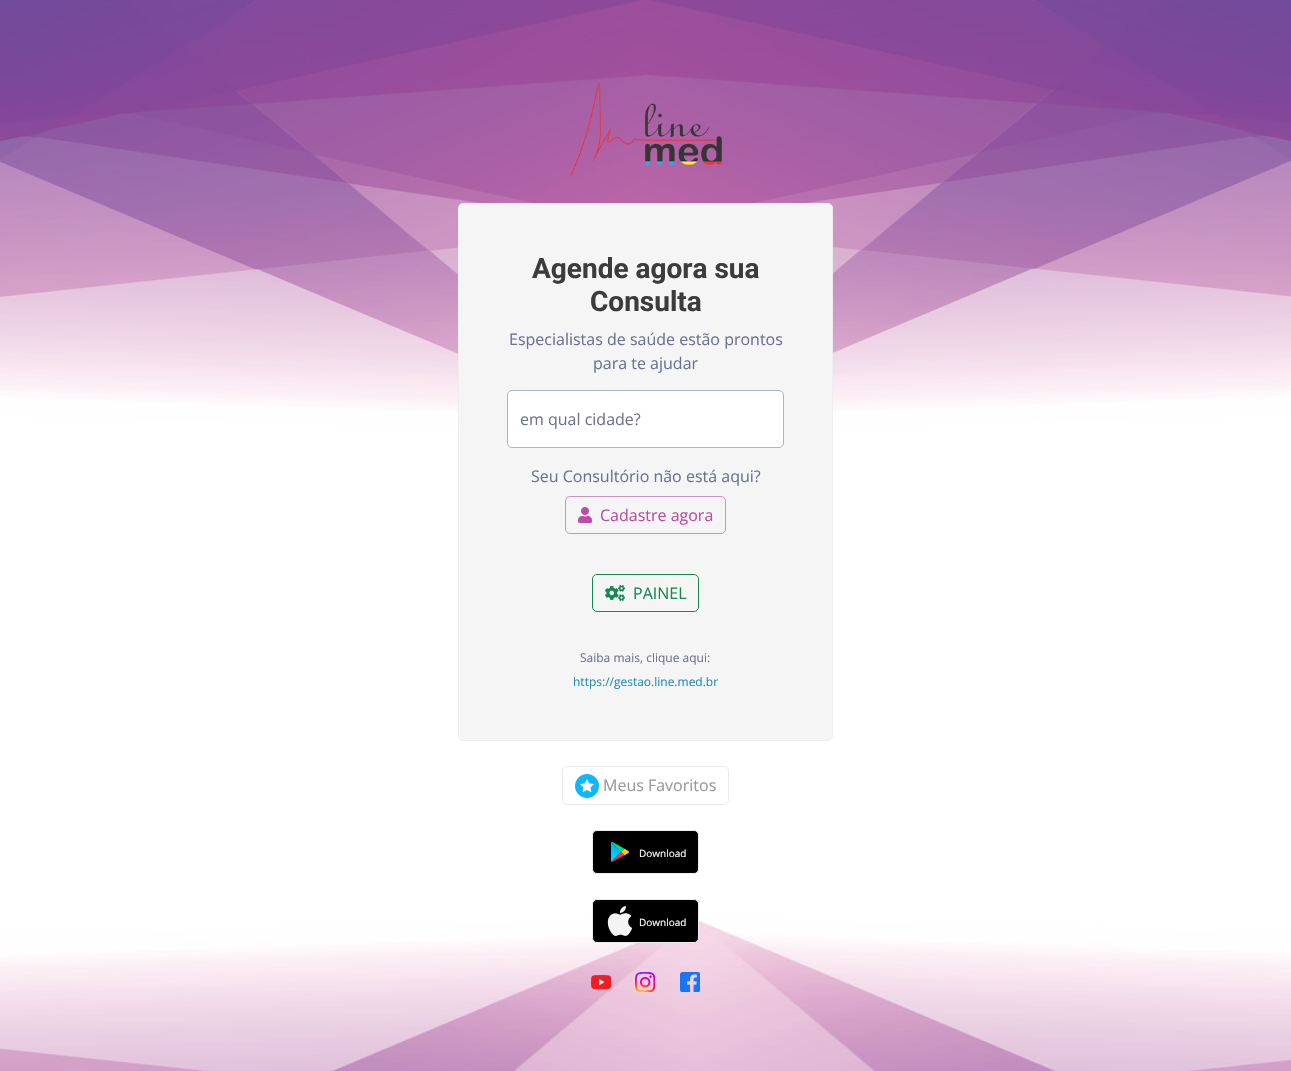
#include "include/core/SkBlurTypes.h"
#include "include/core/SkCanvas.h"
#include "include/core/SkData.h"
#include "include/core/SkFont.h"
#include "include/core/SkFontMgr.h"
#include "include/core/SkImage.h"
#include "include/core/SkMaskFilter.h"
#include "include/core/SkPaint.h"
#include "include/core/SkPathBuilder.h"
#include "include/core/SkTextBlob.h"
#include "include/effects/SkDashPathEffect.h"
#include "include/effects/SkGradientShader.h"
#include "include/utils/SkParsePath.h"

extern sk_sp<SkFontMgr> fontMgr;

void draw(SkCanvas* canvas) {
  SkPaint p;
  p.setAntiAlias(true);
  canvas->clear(SK_ColorWHITE);
  canvas->drawImageRect(SkImages::DeferredFromEncodedData(SkData::MakeFromFileName("images/1.png")), SkRect::MakeLTRB(0, 0, 1291, 1071), SkSamplingOptions());
  canvas->drawImageRect(SkImages::DeferredFromEncodedData(SkData::MakeFromFileName("images/2.png")), SkRect::MakeLTRB(570, 82, 722, 176), SkSamplingOptions());
  p.setColor(SkColorSetRGB(245, 245, 245));
  canvas->drawRoundRect(SkRect::MakeLTRB(458.5f, 203.5f, 832.5f, 740.5f), 4.5f, 4.5f, p);
  p.setStyle(SkPaint::kStroke_Style);
  p.setStrokeWidth(1);
  p.setColor(SkColorSetRGB(238, 238, 238));
  canvas->drawRoundRect(SkRect::MakeLTRB(458.5f, 203.5f, 832.5f, 740.5f), 4.5f, 4.5f, p);
  p.setStyle(SkPaint::kFill_Style);
  p.setColor(SK_ColorWHITE);
  canvas->drawRoundRect(SkRect::MakeLTRB(507.5f, 390.5f, 783.5f, 447.5f), 4.5f, 4.5f, p);
  p.setStyle(SkPaint::kStroke_Style);
  p.setColor(SkColorSetRGB(173, 181, 189));
  canvas->drawRoundRect(SkRect::MakeLTRB(507.5f, 390.5f, 783.5f, 447.5f), 4.5f, 4.5f, p);
  p.setColor(SkColorSetRGB(203, 148, 193));
  canvas->drawRoundRect(SkRect::MakeLTRB(565.5f, 496.5f, 725.5f, 533.5f), 4.5f, 4.5f, p);
  canvas->drawImageRect(SkImages::DeferredFromEncodedData(SkData::MakeFromFileName("images/3.png")), SkRect::MakeLTRB(578, 507, 592, 523), SkSamplingOptions());
  p.setColor(SkColorSetRGB(25, 135, 84));
  canvas->drawRoundRect(SkRect::MakeLTRB(592.5f, 574.5f, 698.5f, 611.5f), 4.5f, 4.5f, p);
  canvas->drawImageRect(SkImages::DeferredFromEncodedData(SkData::MakeFromFileName("images/4.png")), SkRect::MakeLTRB(605, 585, 625, 601), SkSamplingOptions());
  p.setColor(SkColorSetRGB(235, 235, 235));
  canvas->drawRoundRect(SkRect::MakeLTRB(562.5f, 766.5f, 728.5f, 804.5f), 4.5f, 4.5f, p);
  canvas->drawImageRect(SkImages::DeferredFromEncodedData(SkData::MakeFromFileName("images/5.png")), SkRect::MakeLTRB(575, 774, 599, 798), SkSamplingOptions());
  p.setStyle(SkPaint::kFill_Style);
  p.setColor(SK_ColorBLACK);
  canvas->drawRoundRect(SkRect::MakeLTRB(592.5f, 830.5f, 698.5f, 873.5f), 4.5f, 4.5f, p);
  p.setStyle(SkPaint::kStroke_Style);
  p.setColor(SkColorSetRGB(235, 235, 235));
  canvas->drawRoundRect(SkRect::MakeLTRB(592.5f, 830.5f, 698.5f, 873.5f), 4.5f, 4.5f, p);
  canvas->drawImageRect(SkImages::DeferredFromEncodedData(SkData::MakeFromFileName("images/6.png")), SkRect::MakeLTRB(611, 842, 629, 862), SkSamplingOptions());
  p.setStyle(SkPaint::kFill_Style);
  p.setColor(SK_ColorBLACK);
  canvas->drawRoundRect(SkRect::MakeLTRB(592.5f, 899.5f, 698.5f, 942.5f), 4.5f, 4.5f, p);
  p.setStyle(SkPaint::kStroke_Style);
  p.setColor(SkColorSetRGB(235, 235, 235));
  canvas->drawRoundRect(SkRect::MakeLTRB(592.5f, 899.5f, 698.5f, 942.5f), 4.5f, 4.5f, p);
  canvas->drawImageRect(SkImages::DeferredFromEncodedData(SkData::MakeFromFileName("images/7.png")), SkRect::MakeLTRB(607, 906, 633, 936), SkSamplingOptions());
  canvas->drawImageRect(SkImages::DeferredFromEncodedData(SkData::MakeFromFileName("images/8.png")), SkRect::MakeLTRB(591, 975, 611, 990), SkSamplingOptions());
  canvas->drawImageRect(SkImages::DeferredFromEncodedData(SkData::MakeFromFileName("images/9.png")), SkRect::MakeLTRB(635, 972, 656, 992), SkSamplingOptions());
  canvas->drawImageRect(SkImages::DeferredFromEncodedData(SkData::MakeFromFileName("images/10.png")), SkRect::MakeLTRB(680, 972, 700, 992), SkSamplingOptions());
  SkFont font1(fontMgr->matchFamilyStyle("Roboto", SkFontStyle::Bold()), 28);
  font1.setSubpixel(true);
  p.setStyle(SkPaint::kFill_Style);
  p.setColor(SkColorSetRGB(60, 60, 60));
  canvas->drawString("Agende agora sua", 532, 278, font1, p);
  canvas->drawString("Consulta", 590, 311, font1, p);
  SkFont font2(fontMgr->matchFamilyStyle("Open Sans", SkFontStyle::Normal()), 16);
  font2.setSubpixel(true);
  p.setColor(SkColorSetRGB(108, 114, 147));
  canvas->drawString("Especialistas de saúde estão prontos", 509, 345, font2, p);
  canvas->drawString("para te ajudar", 593, 369, font2, p);
  canvas->drawString("em qual cidade?", 520, 425, font2, p);
  canvas->drawString("Seu Consultório não está aqui?", 531, 482, font2, p);
  p.setColor(SkColorSetRGB(187, 76, 167));
  canvas->drawString("Cadastre agora", 600, 521, font2, p);
  p.setColor(SkColorSetRGB(25, 135, 84));
  canvas->drawString("PAINEL", 633, 599, font2, p);
  SkFont font3(fontMgr->matchFamilyStyle("Open Sans", SkFontStyle::Normal()), 12);
  font3.setSubpixel(true);
  p.setColor(SkColorSetRGB(108, 114, 147));
  canvas->drawString("Saiba mais, clique aqui:", 580, 662, font3, p);
  p.setColor(SkColorSetRGB(35, 140, 186));
  canvas->drawString("https://gestao.line.med.br", 573, 686, font3, p);
  p.setColor(SkColorSetRGB(153, 153, 153));
  canvas->drawString("Meus Favoritos", 603, 791, font2, p);
  SkFont font4(fontMgr->matchFamilyStyle("Open Sans", SkFontStyle::Normal()), 10);
  font4.setSubpixel(true);
  p.setColor(SK_ColorWHITE);
  canvas->drawString("Download", 639, 857, font4, p);
  canvas->drawString("Download", 639, 926, font4, p);
}
